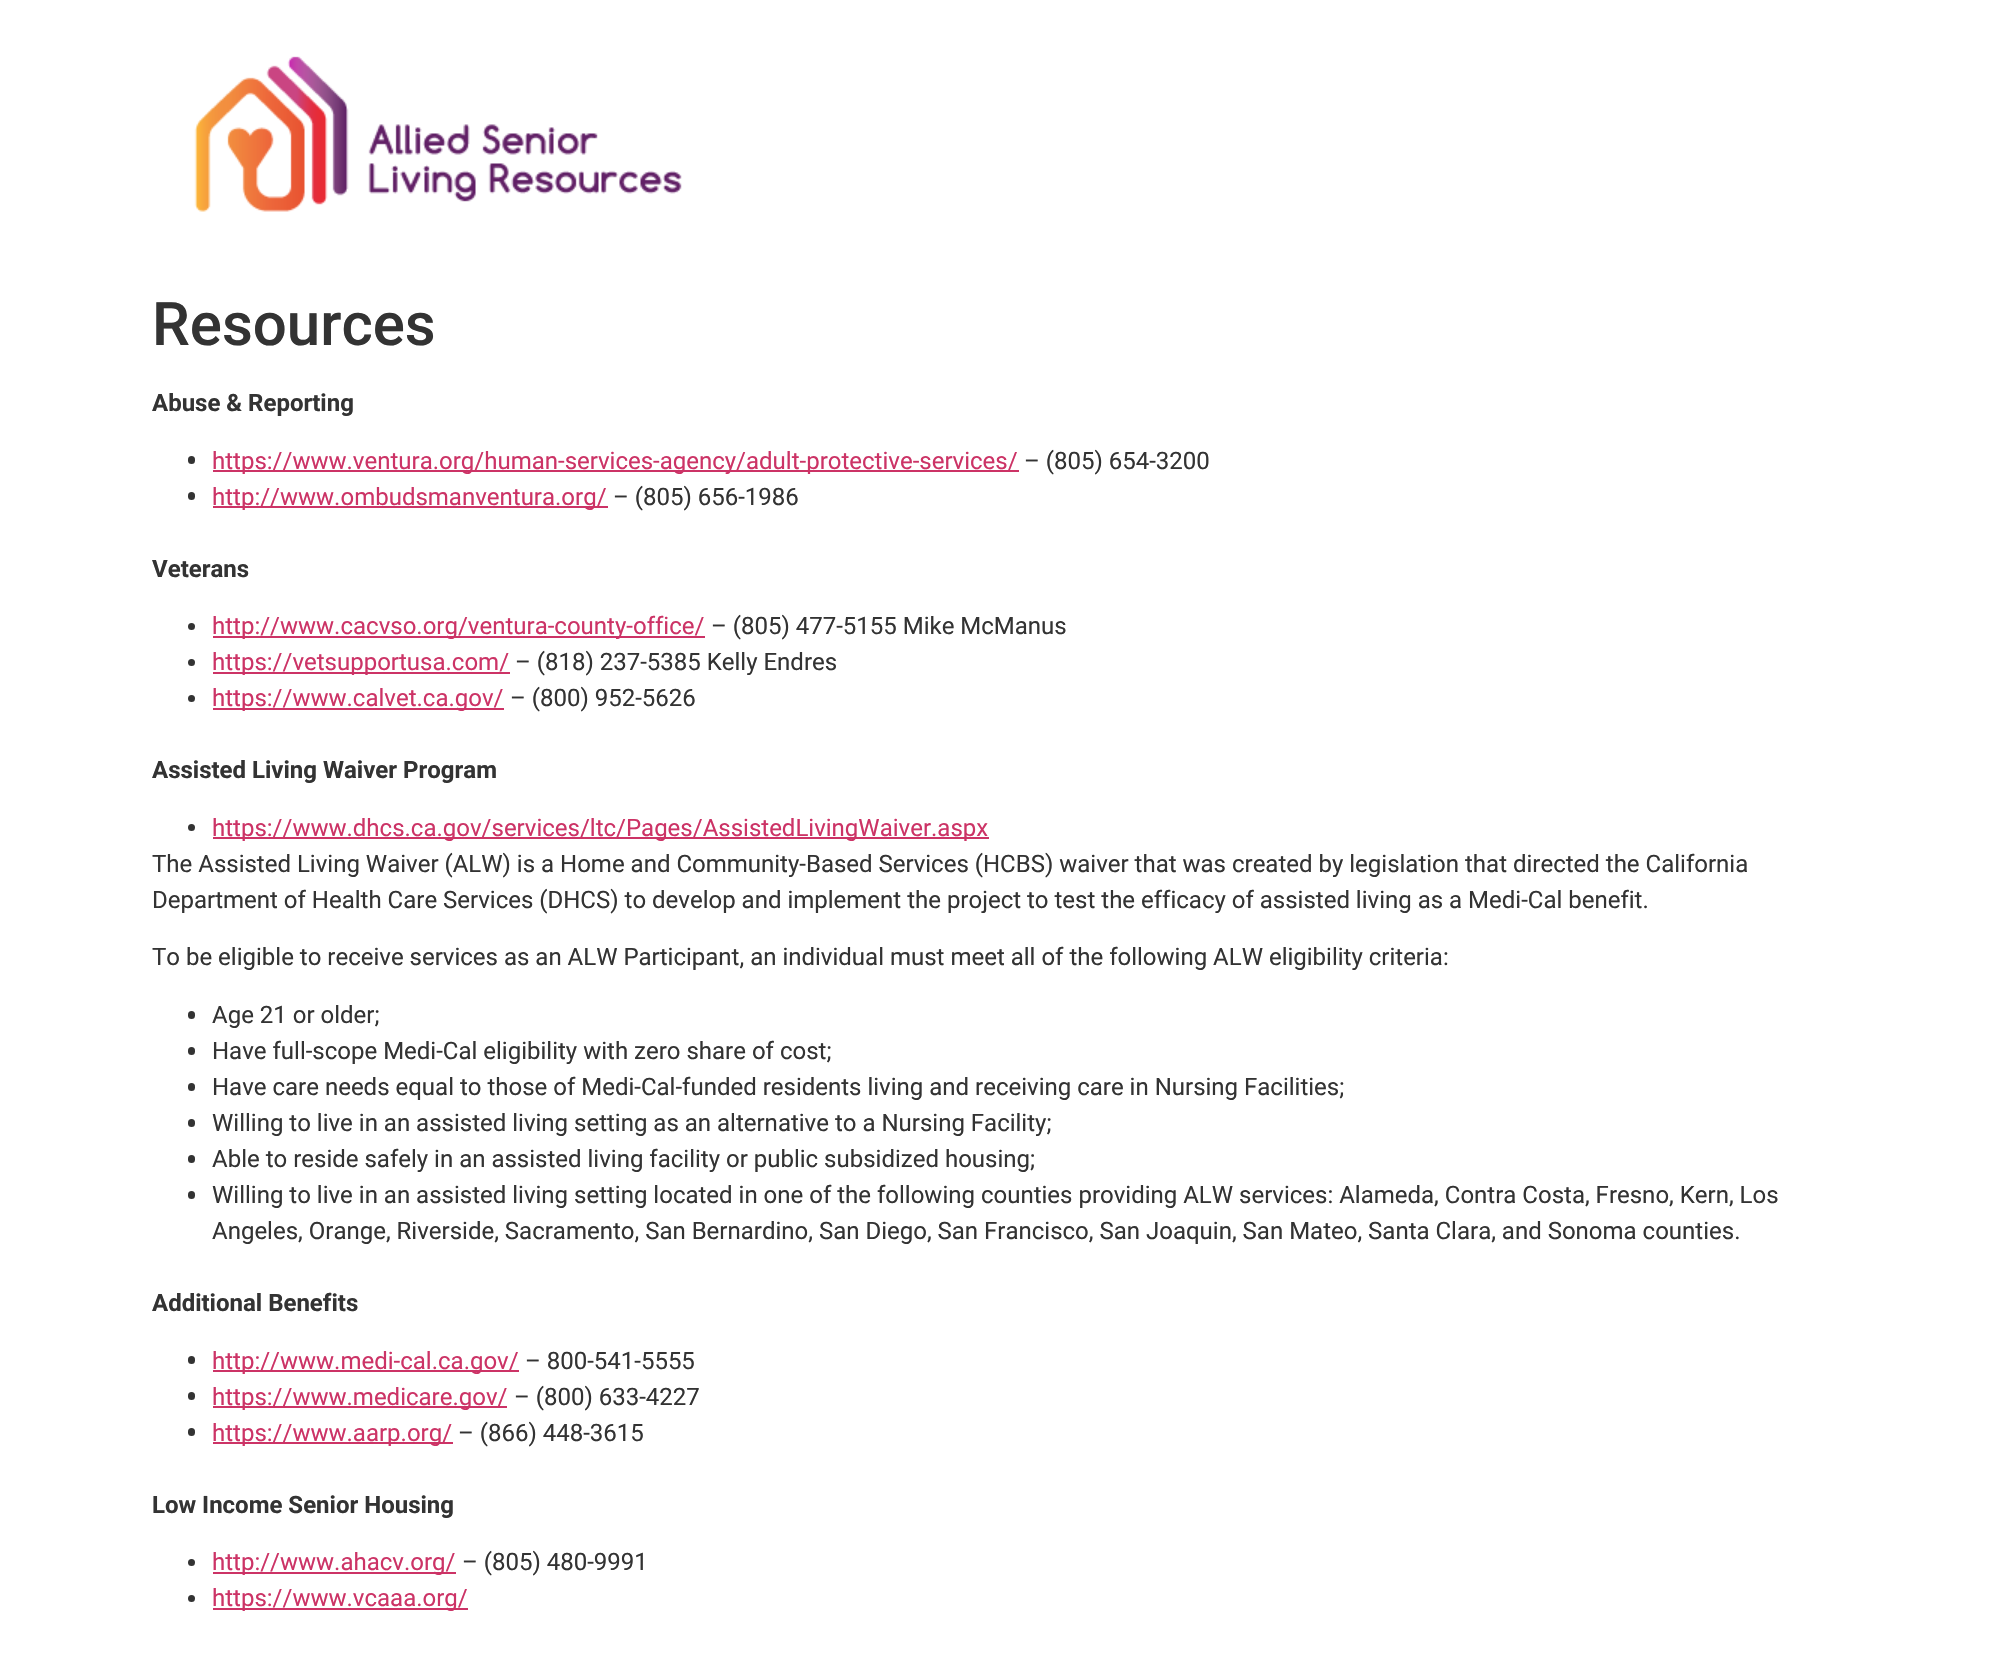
#include "include/core/SkBlurTypes.h"
#include "include/core/SkCanvas.h"
#include "include/core/SkData.h"
#include "include/core/SkFont.h"
#include "include/core/SkFontMgr.h"
#include "include/core/SkImage.h"
#include "include/core/SkMaskFilter.h"
#include "include/core/SkPaint.h"
#include "include/core/SkPathBuilder.h"
#include "include/core/SkTextBlob.h"
#include "include/effects/SkDashPathEffect.h"
#include "include/effects/SkGradientShader.h"
#include "include/utils/SkParsePath.h"

extern sk_sp<SkFontMgr> fontMgr;

void draw(SkCanvas* canvas) {
  SkPaint p;
  p.setAntiAlias(true);
  canvas->clear(SK_ColorWHITE);
  canvas->drawImageRect(SkImages::DeferredFromEncodedData(SkData::MakeFromFileName("images/1.png")), SkRect::MakeLTRB(194, 56, 682, 212), SkSamplingOptions());
  p.setColor(SkColorSetRGB(51, 51, 51));
  canvas->drawRoundRect(SkRect::MakeLTRB(188, 456, 195, 464), 3.5f, 3.5f, p);
  p.setColor(SkColorSetRGB(204, 51, 102));
  canvas->drawRect(SkRect::MakeLTRB(213, 470, 1019, 472), p);
  p.setColor(SkColorSetRGB(51, 51, 51));
  canvas->drawRoundRect(SkRect::MakeLTRB(188, 492, 195, 500), 3.5f, 3.5f, p);
  p.setColor(SkColorSetRGB(204, 51, 102));
  canvas->drawRect(SkRect::MakeLTRB(213, 506, 608, 508), p);
  p.setColor(SkColorSetRGB(51, 51, 51));
  canvas->drawCircle(191.5f, 626.5f, 3.5f, p);
  p.setColor(SkColorSetRGB(204, 51, 102));
  canvas->drawRect(SkRect::MakeLTRB(213, 636, 705, 638), p);
  p.setColor(SkColorSetRGB(51, 51, 51));
  canvas->drawCircle(191.5f, 662.5f, 3.5f, p);
  p.setColor(SkColorSetRGB(204, 51, 102));
  canvas->drawRect(SkRect::MakeLTRB(213, 672, 510, 674), p);
  p.setColor(SkColorSetRGB(51, 51, 51));
  canvas->drawCircle(191.5f, 698.5f, 3.5f, p);
  p.setColor(SkColorSetRGB(204, 51, 102));
  canvas->drawRect(SkRect::MakeLTRB(213, 708, 504, 710), p);
  p.setColor(SkColorSetRGB(51, 51, 51));
  canvas->drawCircle(191.5f, 827.5f, 3.5f, p);
  p.setColor(SkColorSetRGB(204, 51, 102));
  canvas->drawRect(SkRect::MakeLTRB(213, 837, 989, 839), p);
  p.setColor(SkColorSetRGB(51, 51, 51));
  canvas->drawRoundRect(SkRect::MakeLTRB(188, 1011, 195, 1019), 3.5f, 3.5f, p);
  canvas->drawRoundRect(SkRect::MakeLTRB(188, 1047, 195, 1055), 3.5f, 3.5f, p);
  canvas->drawRoundRect(SkRect::MakeLTRB(188, 1083, 195, 1091), 3.5f, 3.5f, p);
  canvas->drawRoundRect(SkRect::MakeLTRB(188, 1119, 195, 1127), 3.5f, 3.5f, p);
  canvas->drawRoundRect(SkRect::MakeLTRB(188, 1155, 195, 1163), 3.5f, 3.5f, p);
  canvas->drawRoundRect(SkRect::MakeLTRB(188, 1191, 195, 1199), 3.5f, 3.5f, p);
  canvas->drawRoundRect(SkRect::MakeLTRB(188, 1356, 195, 1364), 3.5f, 3.5f, p);
  p.setColor(SkColorSetRGB(204, 51, 102));
  canvas->drawRect(SkRect::MakeLTRB(213, 1370, 519, 1372), p);
  p.setColor(SkColorSetRGB(51, 51, 51));
  canvas->drawRoundRect(SkRect::MakeLTRB(188, 1392, 195, 1400), 3.5f, 3.5f, p);
  p.setColor(SkColorSetRGB(204, 51, 102));
  canvas->drawRect(SkRect::MakeLTRB(213, 1406, 507, 1408), p);
  p.setColor(SkColorSetRGB(51, 51, 51));
  canvas->drawRoundRect(SkRect::MakeLTRB(188, 1428, 195, 1436), 3.5f, 3.5f, p);
  p.setColor(SkColorSetRGB(204, 51, 102));
  canvas->drawRect(SkRect::MakeLTRB(213, 1442, 453, 1444), p);
  p.setColor(SkColorSetRGB(51, 51, 51));
  canvas->drawCircle(191.5f, 1562.5f, 3.5f, p);
  p.setColor(SkColorSetRGB(204, 51, 102));
  canvas->drawRect(SkRect::MakeLTRB(213, 1572, 456, 1574), p);
  p.setColor(SkColorSetRGB(51, 51, 51));
  canvas->drawCircle(191.5f, 1598.5f, 3.5f, p);
  p.setColor(SkColorSetRGB(204, 51, 102));
  canvas->drawRect(SkRect::MakeLTRB(213, 1608, 468, 1610), p);
  SkFont font1(fontMgr->matchFamilyStyle("Roboto", SkFontStyle(500, SkFontStyle::kNormal_Width, SkFontStyle::kUpright_Slant)), 60);
  font1.setSubpixel(true);
  p.setColor(SkColorSetRGB(51, 51, 51));
  canvas->drawString("Resources", 152, 345, font1, p);
  SkFont font2(fontMgr->matchFamilyStyle("Roboto", SkFontStyle::Bold()), 24);
  font2.setSubpixel(true);
  canvas->drawString("Abuse & Reporting", 152, 411, font2, p);
  SkFont font3(fontMgr->matchFamilyStyle("Roboto", SkFontStyle::Normal()), 24);
  font3.setSubpixel(true);
  p.setColor(SkColorSetRGB(204, 51, 102));
  canvas->drawString("https://www.ventura.org/human-services-agency/adult-protective-services/", 212, 469, font3, p);
  p.setColor(SkColorSetRGB(51, 51, 51));
  canvas->drawString("– (805) 654-3200", 1024, 469, font3, p);
  p.setColor(SkColorSetRGB(204, 51, 102));
  canvas->drawString("http://www.ombudsmanventura.org/", 212, 505, font3, p);
  p.setColor(SkColorSetRGB(51, 51, 51));
  canvas->drawString("– (805) 656-1986", 613, 505, font3, p);
  canvas->drawString("Veterans", 152, 577, font2, p);
  p.setColor(SkColorSetRGB(204, 51, 102));
  canvas->drawString("http://www.cacvso.org/ventura-county-office/", 212, 634, font3, p);
  p.setColor(SkColorSetRGB(51, 51, 51));
  canvas->drawString("– (805) 477-5155 Mike McManus", 711, 634, font3, p);
  p.setColor(SkColorSetRGB(204, 51, 102));
  canvas->drawString("https://vetsupportusa.com/", 212, 670, font3, p);
  p.setColor(SkColorSetRGB(51, 51, 51));
  canvas->drawString("– (818) 237-5385 Kelly Endres", 515, 670, font3, p);
  p.setColor(SkColorSetRGB(204, 51, 102));
  canvas->drawString("https://www.calvet.ca.gov/", 212, 706, font3, p);
  p.setColor(SkColorSetRGB(51, 51, 51));
  canvas->drawString("– (800) 952-5626", 510, 706, font3, p);
  canvas->drawString("Assisted Living Waiver Program", 152, 778, font2, p);
  p.setColor(SkColorSetRGB(204, 51, 102));
  canvas->drawString("https://www.dhcs.ca.gov/services/ltc/Pages/AssistedLivingWaiver.aspx", 212, 836, font3, p);
  p.setColor(SkColorSetRGB(51, 51, 51));
  canvas->drawString("The Assisted Living Waiver (ALW) is a Home and Community-Based Services (HCBS) waiver that was created by legislation that directed the California", 152, 872, font3, p);
  canvas->drawString("Department of Health Care Services (DHCS) to develop and implement the project to test the efficacy of assisted living as a Medi-Cal benefit.", 152, 908, font3, p);
  canvas->drawString("To be eligible to receive services as an ALW Participant, an individual must meet all of the following ALW eligibility criteria:", 152, 965, font3, p);
  canvas->drawString("Age 21 or older;", 212, 1023, font3, p);
  canvas->drawString("Have full-scope Medi-Cal eligibility with zero share of cost;", 212, 1059, font3, p);
  canvas->drawString("Have care needs equal to those of Medi-Cal-funded residents living and receiving care in Nursing Facilities;", 212, 1095, font3, p);
  canvas->drawString("Willing to live in an assisted living setting as an alternative to a Nursing Facility;", 212, 1131, font3, p);
  canvas->drawString("Able to reside safely in an assisted living facility or public subsidized housing;", 212, 1167, font3, p);
  canvas->drawString("Willing to live in an assisted living setting located in one of the following counties providing ALW services: Alameda, Contra Costa, Fresno, Kern, Los", 212, 1203, font3, p);
  canvas->drawString("Angeles, Orange, Riverside, Sacramento, San Bernardino, San Diego, San Francisco, San Joaquin, San Mateo, Santa Clara, and Sonoma counties.", 212, 1239, font3, p);
  canvas->drawString("Additional Benefits", 152, 1311, font2, p);
  p.setColor(SkColorSetRGB(204, 51, 102));
  canvas->drawString("http://www.medi-cal.ca.gov/", 212, 1369, font3, p);
  p.setColor(SkColorSetRGB(51, 51, 51));
  canvas->drawString("– 800-541-5555", 525, 1369, font3, p);
  p.setColor(SkColorSetRGB(204, 51, 102));
  canvas->drawString("https://www.medicare.gov/", 212, 1405, font3, p);
  p.setColor(SkColorSetRGB(51, 51, 51));
  canvas->drawString("– (800) 633-4227", 514, 1405, font3, p);
  p.setColor(SkColorSetRGB(204, 51, 102));
  canvas->drawString("https://www.aarp.org/", 212, 1441, font3, p);
  p.setColor(SkColorSetRGB(51, 51, 51));
  canvas->drawString("– (866) 448-3615", 458, 1441, font3, p);
  canvas->drawString("Low Income Senior Housing", 152, 1513, font2, p);
  p.setColor(SkColorSetRGB(204, 51, 102));
  canvas->drawString("http://www.ahacv.org/", 212, 1570, font3, p);
  p.setColor(SkColorSetRGB(51, 51, 51));
  canvas->drawString("– (805) 480-9991", 462, 1570, font3, p);
  p.setColor(SkColorSetRGB(204, 51, 102));
  canvas->drawString("https://www.vcaaa.org/", 212, 1606, font3, p);
}
